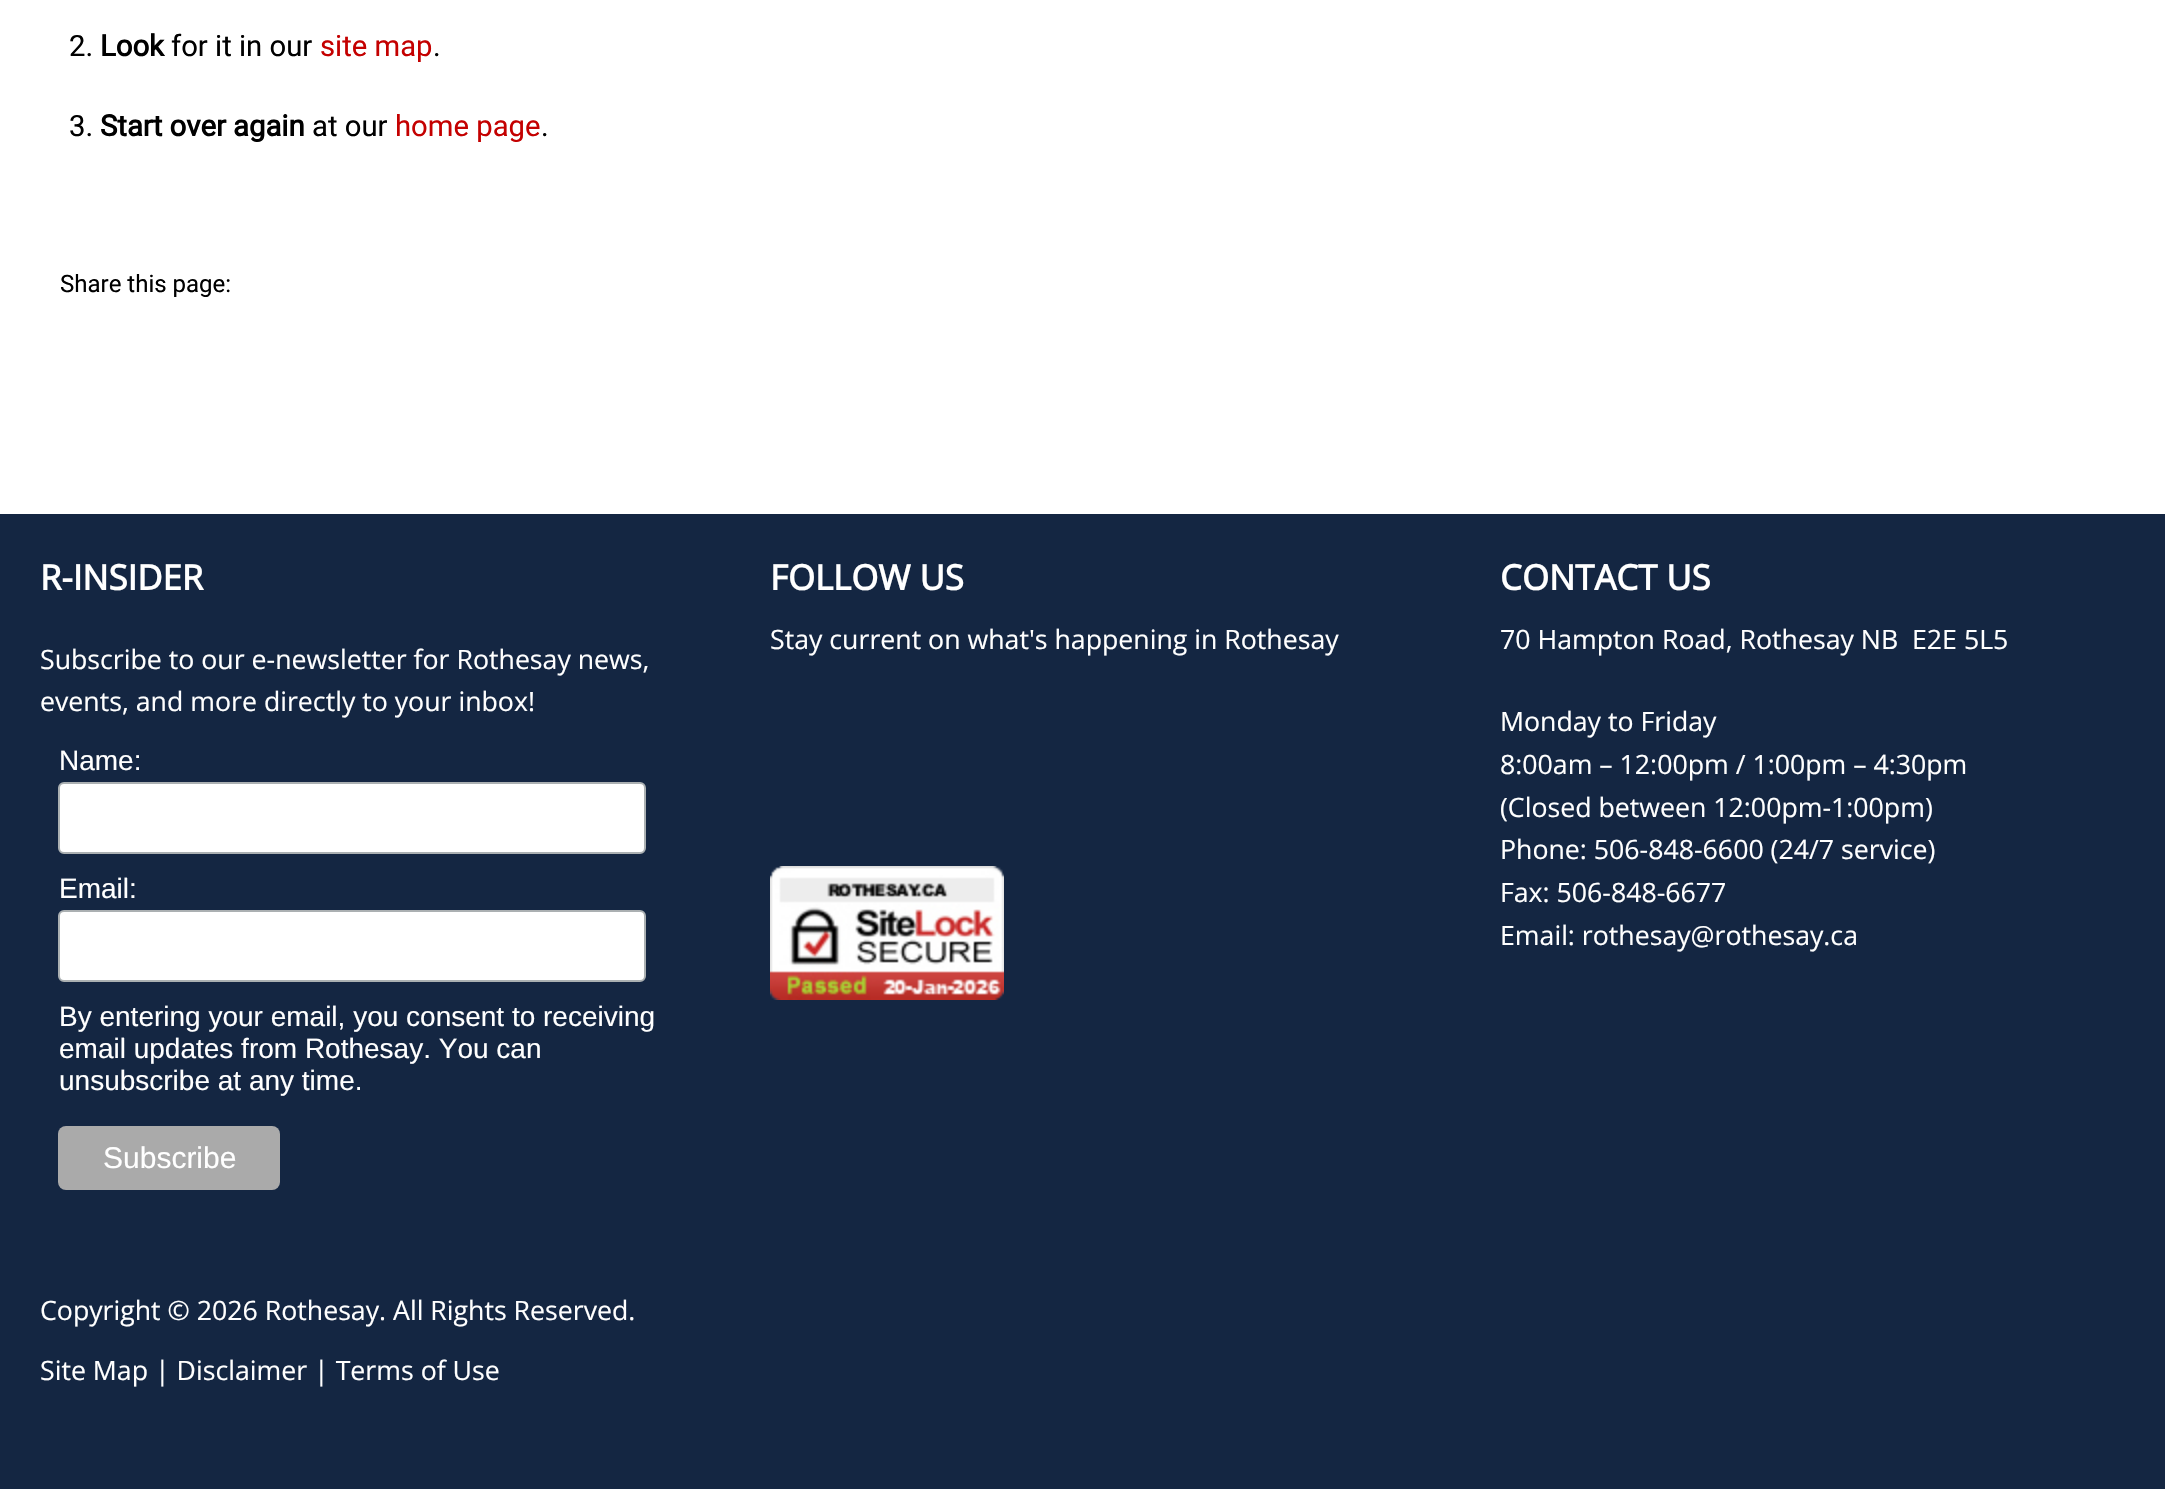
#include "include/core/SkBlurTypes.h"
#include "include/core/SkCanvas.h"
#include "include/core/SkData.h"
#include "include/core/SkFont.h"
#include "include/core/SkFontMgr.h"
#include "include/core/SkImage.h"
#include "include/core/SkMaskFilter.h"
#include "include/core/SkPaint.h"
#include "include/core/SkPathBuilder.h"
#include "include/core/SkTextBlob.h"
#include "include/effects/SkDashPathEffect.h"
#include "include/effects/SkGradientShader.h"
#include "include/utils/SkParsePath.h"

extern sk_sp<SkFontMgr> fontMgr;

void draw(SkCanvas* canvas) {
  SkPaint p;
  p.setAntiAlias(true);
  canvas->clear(SK_ColorWHITE);
  p.setColor(SkColorSetRGB(20, 38, 66));
  canvas->drawRect(SkRect::MakeLTRB(0, 514, 2165, 1489), p);
  p.setColor(SK_ColorWHITE);
  canvas->drawRoundRect(SkRect::MakeLTRB(59, 783, 645, 853), 5, 5, p);
  p.setStyle(SkPaint::kStroke_Style);
  p.setStrokeWidth(2);
  p.setColor(SkColorSetRGB(171, 176, 178));
  canvas->drawRoundRect(SkRect::MakeLTRB(59, 783, 645, 853), 5, 5, p);
  p.setStyle(SkPaint::kFill_Style);
  p.setColor(SK_ColorWHITE);
  canvas->drawRoundRect(SkRect::MakeLTRB(59, 911, 645, 981), 5, 5, p);
  p.setStyle(SkPaint::kStroke_Style);
  p.setColor(SkColorSetRGB(171, 176, 178));
  canvas->drawRoundRect(SkRect::MakeLTRB(59, 911, 645, 981), 5, 5, p);
  p.setStyle(SkPaint::kFill_Style);
  p.setColor(SkColorSetRGB(170, 170, 170));
  canvas->drawRoundRect(SkRect::MakeLTRB(58, 1126, 280, 1190), 8, 8, p);
  canvas->drawImageRect(SkImages::DeferredFromEncodedData(SkData::MakeFromFileName("images/1.png")), SkRect::MakeLTRB(770, 866, 1004, 1000), SkSamplingOptions());
  SkFont font1(fontMgr->matchFamilyStyle("Roboto", SkFontStyle::Normal()), 29.25f);
  font1.setSubpixel(true);
  p.setColor(SK_ColorBLACK);
  canvas->drawString("2.", 69, 56, font1, p);
  SkFont font2(fontMgr->matchFamilyStyle("Roboto", SkFontStyle::Bold()), 29.25f);
  font2.setSubpixel(true);
  canvas->drawString("Look", 100, 56, font2, p);
  canvas->drawString("for it in our", 171, 56, font1, p);
  p.setColor(SkColorSetRGB(196, 0, 0));
  canvas->drawString("site map", 320, 56, font1, p);
  p.setColor(SK_ColorBLACK);
  canvas->drawString(".", 433, 56, font1, p);
  canvas->drawString("3.", 69, 136, font1, p);
  canvas->drawString("Start over again", 100, 136, font2, p);
  canvas->drawString("at our", 312, 136, font1, p);
  p.setColor(SkColorSetRGB(196, 0, 0));
  canvas->drawString("home page", 395, 136, font1, p);
  p.setColor(SK_ColorBLACK);
  canvas->drawString(".", 541, 136, font1, p);
  SkFont font3(fontMgr->matchFamilyStyle("Roboto", SkFontStyle::Normal()), 24);
  font3.setSubpixel(true);
  canvas->drawString("Share this page:", 60, 292, font3, p);
  SkFont font4(fontMgr->matchFamilyStyle("Open Sans", SkFontStyle::Bold()), 34.75f);
  font4.setSubpixel(true);
  p.setColor(SK_ColorWHITE);
  canvas->drawString("R-INSIDER", 40, 590, font4, p);
  SkFont font5(fontMgr->matchFamilyStyle("Open Sans", SkFontStyle::Normal()), 26.7f);
  font5.setSubpixel(true);
  canvas->drawString("Subscribe to our e-newsletter for Rothesay news,", 40, 669, font5, p);
  canvas->drawString("events, and more directly to your inbox!", 40, 711, font5, p);
  SkFont font6(fontMgr->matchFamilyStyle("Liberation Sans", SkFontStyle::Normal()), 28);
  font6.setSubpixel(true);
  canvas->drawString("Name:", 59, 770, font6, p);
  canvas->drawString("Email:", 59, 898, font6, p);
  canvas->drawString("By entering your email, you consent to receiving", 59, 1026, font6, p);
  canvas->drawString("email updates from Rothesay. You can", 59, 1058, font6, p);
  canvas->drawString("unsubscribe at any time.", 59, 1090, font6, p);
  SkFont font7(fontMgr->matchFamilyStyle("Liberation Sans", SkFontStyle::Normal()), 30);
  font7.setSubpixel(true);
  canvas->drawString("Subscribe", 103, 1168, font7, p);
  canvas->drawString("FOLLOW US", 770, 590, font4, p);
  canvas->drawString("Stay current on what's happening in Rothesay", 770, 649, font5, p);
  canvas->drawString("CONTACT US", 1500, 590, font4, p);
  canvas->drawString("70 Hampton Road, Rothesay NB  E2E 5L5", 1500, 649, font5, p);
  canvas->drawString("Monday to Friday", 1500, 731, font5, p);
  canvas->drawString("8:00am – 12:00pm / 1:00pm – 4:30pm", 1500, 774, font5, p);
  canvas->drawString("(Closed between 12:00pm-1:00pm)", 1500, 817, font5, p);
  canvas->drawString("Phone: 506-848-6600 (24/7 service)", 1500, 859, font5, p);
  canvas->drawString("Fax: 506-848-6677", 1500, 902, font5, p);
  canvas->drawString("Email: rothesay@rothesay.ca", 1500, 945, font5, p);
  canvas->drawString("Copyright © 2026 Rothesay. All Rights Reserved.", 40, 1320, font5, p);
  canvas->drawString("Site Map | Disclaimer | Terms of Use", 40, 1380, font5, p);
}
